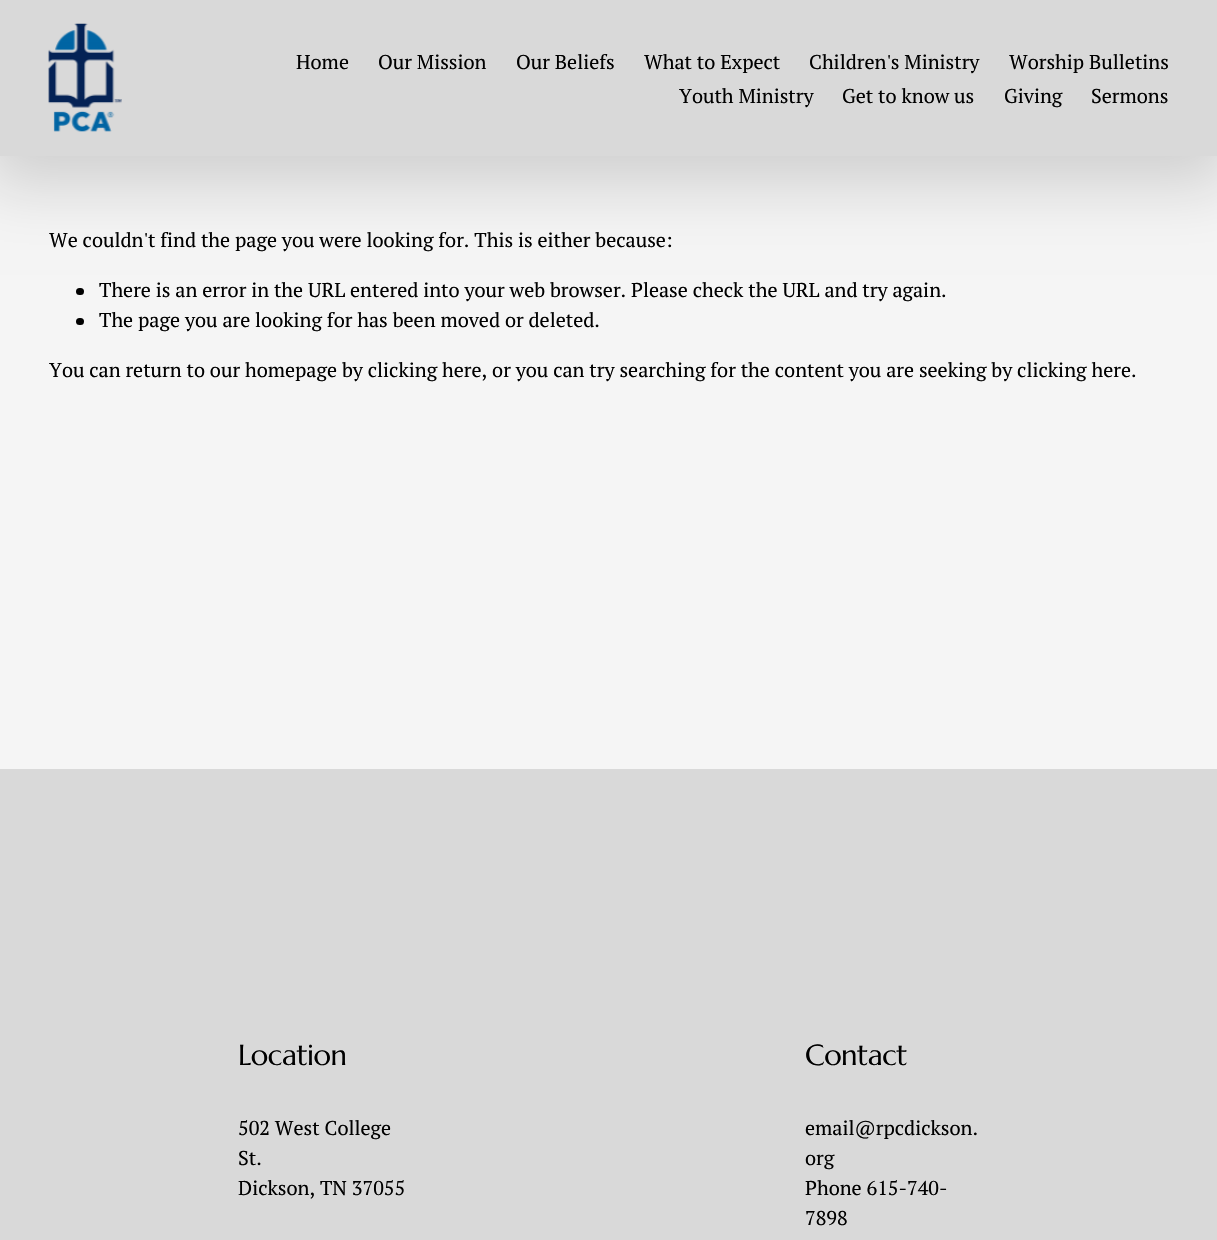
#include "include/core/SkBlurTypes.h"
#include "include/core/SkCanvas.h"
#include "include/core/SkData.h"
#include "include/core/SkFont.h"
#include "include/core/SkFontMgr.h"
#include "include/core/SkImage.h"
#include "include/core/SkMaskFilter.h"
#include "include/core/SkPaint.h"
#include "include/core/SkPathBuilder.h"
#include "include/core/SkTextBlob.h"
#include "include/effects/SkDashPathEffect.h"
#include "include/effects/SkGradientShader.h"
#include "include/utils/SkParsePath.h"

extern sk_sp<SkFontMgr> fontMgr;

void draw(SkCanvas* canvas) {
  SkPaint p;
  p.setAntiAlias(true);
  auto spacedText = [&](const char* s, float x, float y, const SkFont& font, const SkPaint& ink, float letter, float word) {
    std::vector<SkGlyphID> glyphs(font.countText(s, strlen(s), SkTextEncoding::kUTF8));
    std::vector<float> xs(glyphs.size());
    font.textToGlyphs(s, strlen(s), SkTextEncoding::kUTF8, glyphs);
    font.getXPos(glyphs, xs, x);
    float extra = 0;
    for (size_t i = 0; i < glyphs.size(); i++) {
      xs[i] += extra;
      extra += letter + word * (glyphs[i] == font.unicharToGlyph(' '));
    }
    canvas->drawTextBlob(SkTextBlob::MakeFromPosHGlyphs(glyphs, xs, y, font), 0, 0, ink);
  };
  canvas->clear(SkColorSetRGB(245, 245, 245));
  p.setColor(SkColorSetARGB(38, 0, 0, 0));
  p.setMaskFilter(SkMaskFilter::MakeBlur(kNormal_SkBlurStyle, 30));
  canvas->drawRect(SkRect::MakeLTRB(-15, 0, 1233, 186), p);
  p.setMaskFilter(nullptr);
  p.setColor(SkColorSetRGB(217, 217, 217));
  canvas->drawRect(SkRect::MakeLTRB(0, 0, 1217, 156), p);
  canvas->drawImageRect(SkImages::DeferredFromEncodedData(SkData::MakeFromFileName("images/1.png")), SkRect::MakeLTRB(48, 23, 122, 132), SkSamplingOptions());
  p.setColor(SK_ColorBLACK);
  canvas->drawRoundRect(SkRect::MakeLTRB(76, 288, 84, 295), 3.5f, 3.5f, p);
  canvas->drawRoundRect(SkRect::MakeLTRB(76, 318, 84, 325), 3.5f, 3.5f, p);
  p.setColor(SkColorSetRGB(217, 217, 217));
  canvas->drawRect(SkRect::MakeLTRB(0, 769, 1217, 1240), p);
  SkFont font1(fontMgr->matchFamilyStyle("PT Serif", SkFontStyle::Normal()), 20);
  font1.setSubpixel(true);
  p.setColor(SK_ColorBLACK);
  canvas->drawString("Home", 296, 69, font1, p);
  canvas->drawString("Our Mission", 378, 69, font1, p);
  canvas->drawString("Our Beliefs", 516, 69, font1, p);
  canvas->drawString("What to Expect", 644, 69, font1, p);
  canvas->drawString("Children's Ministry", 809, 69, font1, p);
  canvas->drawString("Worship Bulletins", 1009, 69, font1, p);
  canvas->drawString("Youth Ministry", 679, 103, font1, p);
  canvas->drawString("Get to know us", 842, 103, font1, p);
  canvas->drawString("Giving", 1004, 103, font1, p);
  canvas->drawString("Sermons", 1091, 103, font1, p);
  canvas->drawString("We couldn't find the page you were looking for. This is either because:", 49, 247, font1, p);
  canvas->drawString("There is an error in the URL entered into your web browser. Please check the URL and try again.", 99, 297, font1, p);
  canvas->drawString("The page you are looking for has been moved or deleted.", 99, 327, font1, p);
  canvas->drawString("You can return to our homepage by clicking here, or you can try searching for the content you are seeking by clicking here.", 49, 377, font1, p);
  SkFont font2(fontMgr->matchFamilyStyle("Marcellus", SkFontStyle::Normal()), 29);
  font2.setSubpixel(true);
  spacedText("Location", 238, 1065, font2, p, -0.5f, 0);
  canvas->drawString("502 West College", 238, 1135, font1, p);
  canvas->drawString("St.", 238, 1165, font1, p);
  canvas->drawString("Dickson, TN 37055", 238, 1195, font1, p);
  spacedText("Contact", 805, 1065, font2, p, -0.5f, 0);
  canvas->drawString("email@rpcdickson.", 805, 1135, font1, p);
  canvas->drawString("org", 805, 1165, font1, p);
  canvas->drawString("Phone 615-740-", 805, 1195, font1, p);
  canvas->drawString("7898", 805, 1225, font1, p);
}
